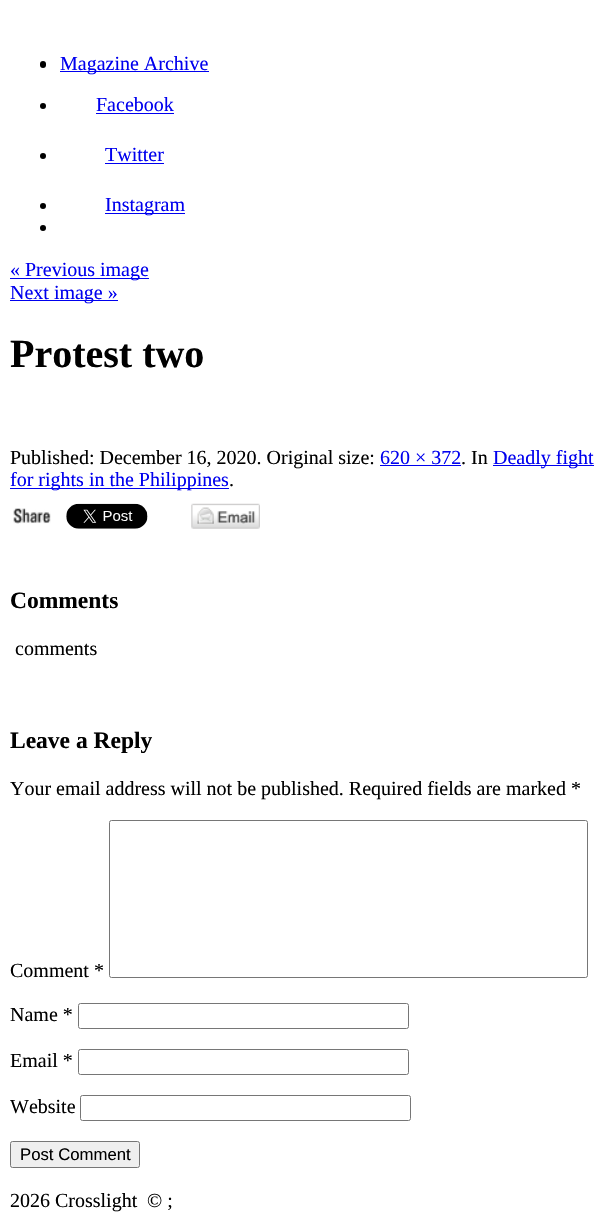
#include "include/core/SkBlurTypes.h"
#include "include/core/SkCanvas.h"
#include "include/core/SkData.h"
#include "include/core/SkFont.h"
#include "include/core/SkFontMgr.h"
#include "include/core/SkImage.h"
#include "include/core/SkMaskFilter.h"
#include "include/core/SkPaint.h"
#include "include/core/SkPathBuilder.h"
#include "include/core/SkTextBlob.h"
#include "include/effects/SkDashPathEffect.h"
#include "include/effects/SkGradientShader.h"
#include "include/utils/SkParsePath.h"

extern sk_sp<SkFontMgr> fontMgr;

void draw(SkCanvas* canvas) {
  SkPaint p;
  p.setAntiAlias(true);
  canvas->clear(SK_ColorWHITE);
  p.setColor(SK_ColorBLACK);
  canvas->drawRoundRect(SkRect::MakeLTRB(40, 61, 46, 68), 3, 3, p);
  p.setColor(SkColorSetRGB(0, 0, 238));
  canvas->drawRect(SkRect::MakeLTRB(60, 71, 209, 72), p);
  p.setColor(SK_ColorBLACK);
  canvas->drawCircle(43, 106, 3, p);
  p.setColor(SkColorSetRGB(0, 0, 238));
  canvas->drawRect(SkRect::MakeLTRB(96, 113, 174, 114), p);
  p.setColor(SK_ColorBLACK);
  canvas->drawCircle(43, 156, 3, p);
  p.setColor(SkColorSetRGB(0, 0, 238));
  canvas->drawRect(SkRect::MakeLTRB(105, 163, 164, 164), p);
  p.setColor(SK_ColorBLACK);
  canvas->drawCircle(43, 206, 3, p);
  p.setColor(SkColorSetRGB(0, 0, 238));
  canvas->drawRect(SkRect::MakeLTRB(105, 213, 185, 214), p);
  p.setColor(SK_ColorBLACK);
  canvas->drawCircle(43, 228, 3, p);
  p.setColor(SkColorSetRGB(0, 0, 238));
  canvas->drawRect(SkRect::MakeLTRB(10, 278, 149, 279), p);
  canvas->drawRect(SkRect::MakeLTRB(10, 300, 118, 301), p);
  canvas->drawRect(SkRect::MakeLTRB(380, 465, 461, 466), p);
  canvas->drawRect(SkRect::MakeLTRB(493, 465, 594, 466), p);
  canvas->drawRect(SkRect::MakeLTRB(10, 488, 229, 489), p);
  canvas->drawImageRect(SkImages::DeferredFromEncodedData(SkData::MakeFromFileName("images/1.png")), SkRect::MakeLTRB(13, 508, 51, 524), SkSamplingOptions());
  canvas->drawImageRect(SkImages::DeferredFromEncodedData(SkData::MakeFromFileName("images/2.png")), SkRect::MakeLTRB(66, 503, 148, 529), SkSamplingOptions());
  canvas->drawImageRect(SkImages::DeferredFromEncodedData(SkData::MakeFromFileName("images/3.png")), SkRect::MakeLTRB(191, 503, 260, 529), SkSamplingOptions());
  p.setStyle(SkPaint::kStroke_Style);
  p.setStrokeWidth(1);
  p.setColor(SkColorSetRGB(118, 118, 118));
  canvas->drawRoundRect(SkRect::MakeLTRB(109.5f, 820.5f, 587.5f, 977.5f), 2, 2, p);
  canvas->drawRoundRect(SkRect::MakeLTRB(78.5f, 1003.5f, 408.5f, 1028.5f), 2, 2, p);
  canvas->drawRoundRect(SkRect::MakeLTRB(78.5f, 1049.5f, 408.5f, 1074.5f), 2, 2, p);
  canvas->drawRoundRect(SkRect::MakeLTRB(80.5f, 1095.5f, 410.5f, 1120.5f), 2, 2, p);
  p.setStyle(SkPaint::kFill_Style);
  p.setColor(SkColorSetRGB(239, 239, 239));
  canvas->drawRoundRect(SkRect::MakeLTRB(10.5f, 1141.5f, 139.5f, 1167.5f), 2, 2, p);
  p.setStyle(SkPaint::kStroke_Style);
  p.setColor(SkColorSetRGB(118, 118, 118));
  canvas->drawRoundRect(SkRect::MakeLTRB(10.5f, 1141.5f, 139.5f, 1167.5f), 2, 2, p);
  SkFont font1(fontMgr->matchFamilyStyle("Liberation Serif", SkFontStyle::Normal()), 20);
  font1.setSubpixel(true);
  p.setStyle(SkPaint::kFill_Style);
  p.setColor(SkColorSetRGB(0, 0, 238));
  canvas->drawString("Magazine Archive", 60, 70, font1, p);
  canvas->drawString("Facebook", 96, 111, font1, p);
  canvas->drawString("Twitter", 105, 161, font1, p);
  canvas->drawString("Instagram", 105, 211, font1, p);
  canvas->drawString("« Previous image", 10, 276, font1, p);
  canvas->drawString("Next image »", 10, 299, font1, p);
  SkFont font2(fontMgr->matchFamilyStyle("Liberation Serif", SkFontStyle::Bold()), 40);
  font2.setSubpixel(true);
  p.setColor(SK_ColorBLACK);
  canvas->drawString("Protest two", 10, 367, font2, p);
  canvas->drawString("Published: December 16, 2020. Original size:", 10, 464, font1, p);
  p.setColor(SkColorSetRGB(0, 0, 238));
  canvas->drawString("620 × 372", 380, 464, font1, p);
  p.setColor(SK_ColorBLACK);
  canvas->drawString(". In", 461, 464, font1, p);
  p.setColor(SkColorSetRGB(0, 0, 238));
  canvas->drawString("Deadly fight", 493, 464, font1, p);
  canvas->drawString("for rights in the Philippines", 10, 486, font1, p);
  p.setColor(SK_ColorBLACK);
  canvas->drawString(".", 229, 486, font1, p);
  SkFont font3(fontMgr->matchFamilyStyle("Liberation Serif", SkFontStyle::Bold()), 23.5f);
  font3.setSubpixel(true);
  canvas->drawString("Comments", 10, 608, font3, p);
  canvas->drawString("comments", 15, 655, font1, p);
  canvas->drawString("Leave a Reply", 10, 748, font3, p);
  canvas->drawString("Your email address will not be published. Required fields are marked *", 10, 795, font1, p);
  canvas->drawString("Comment *", 10, 977, font1, p);
  canvas->drawString("Name *", 10, 1021, font1, p);
  canvas->drawString("Email *", 10, 1067, font1, p);
  canvas->drawString("Website", 10, 1113, font1, p);
  SkFont font4(fontMgr->matchFamilyStyle("Liberation Sans", SkFontStyle::Normal()), 16.75f);
  font4.setSubpixel(true);
  canvas->drawString("Post Comment", 20, 1160, font4, p);
  canvas->drawString("2026 Crosslight", 10, 1207, font1, p);
  canvas->drawString("© ;", 147, 1207, font1, p);
}
